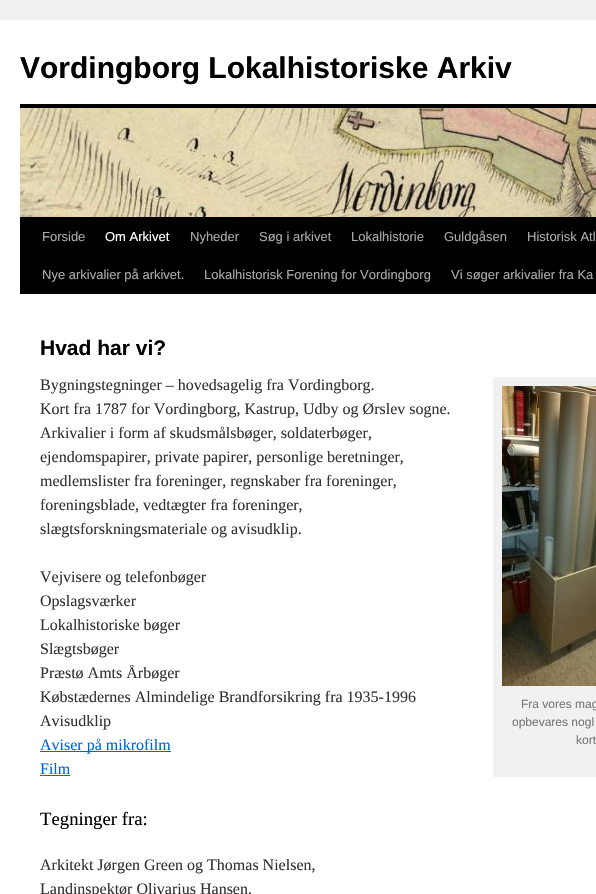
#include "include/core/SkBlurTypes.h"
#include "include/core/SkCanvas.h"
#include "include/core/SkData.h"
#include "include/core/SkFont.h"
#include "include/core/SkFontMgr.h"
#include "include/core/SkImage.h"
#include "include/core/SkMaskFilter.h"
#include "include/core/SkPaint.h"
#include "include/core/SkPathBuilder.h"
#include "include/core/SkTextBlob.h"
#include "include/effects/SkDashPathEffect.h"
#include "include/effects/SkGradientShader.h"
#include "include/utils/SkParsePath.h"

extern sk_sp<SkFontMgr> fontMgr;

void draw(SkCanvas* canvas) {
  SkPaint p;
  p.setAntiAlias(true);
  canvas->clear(SkColorSetRGB(241, 241, 241));
  p.setColor(SK_ColorWHITE);
  canvas->drawRect(SkRect::MakeLTRB(0, 20, 596, 894), p);
  p.setColor(SK_ColorBLACK);
  canvas->drawRect(SkRect::MakeLTRB(20, 104, 596, 108), p);
  canvas->drawRect(SkRect::MakeLTRB(20, 217, 596, 294), p);
  canvas->drawImageRect(SkImages::DeferredFromEncodedData(SkData::MakeFromFileName("images/1.png")), SkRect::MakeLTRB(20, 108, 596, 217), SkSamplingOptions());
  p.setColor(SkColorSetRGB(0, 102, 204));
  canvas->drawRect(SkRect::MakeLTRB(40, 751, 171, 752), p);
  canvas->drawRect(SkRect::MakeLTRB(40, 775, 70, 776), p);
  p.setColor(SkColorSetRGB(241, 241, 241));
  canvas->drawRect(SkRect::MakeLTRB(493, 377, 596, 777), p);
  canvas->drawImageRect(SkImages::DeferredFromEncodedData(SkData::MakeFromFileName("images/2.png")), SkRect::MakeLTRB(502, 386, 596, 686), SkSamplingOptions());
  SkFont font1(fontMgr->matchFamilyStyle("Liberation Sans", SkFontStyle::Bold()), 30);
  font1.setSubpixel(true);
  p.setColor(SK_ColorBLACK);
  canvas->drawString("Vordingborg Lokalhistoriske Arkiv", 20, 78, font1, p);
  SkFont font2(fontMgr->matchFamilyStyle("Liberation Sans", SkFontStyle::Normal()), 13);
  font2.setSubpixel(true);
  p.setColor(SkColorSetRGB(170, 170, 170));
  canvas->drawString("Forside", 42, 241, font2, p);
  p.setColor(SK_ColorWHITE);
  canvas->drawString("Om Arkivet", 105, 241, font2, p);
  p.setColor(SkColorSetRGB(170, 170, 170));
  canvas->drawString("Nyheder", 190, 241, font2, p);
  canvas->drawString("Søg i arkivet", 259, 241, font2, p);
  canvas->drawString("Lokalhistorie", 351, 241, font2, p);
  canvas->drawString("Guldgåsen", 444, 241, font2, p);
  canvas->drawString("Historisk Atl", 527, 241, font2, p);
  canvas->drawString("Nye arkivalier på arkivet.", 42, 279, font2, p);
  canvas->drawString("Lokalhistorisk Forening for Vordingborg", 204, 279, font2, p);
  canvas->drawString("Vi søger arkivalier fra Ka", 451, 279, font2, p);
  SkFont font3(fontMgr->matchFamilyStyle("Liberation Sans", SkFontStyle::Bold()), 21);
  font3.setSubpixel(true);
  p.setColor(SK_ColorBLACK);
  canvas->drawString("Hvad har vi?", 40, 355, font3, p);
  SkFont font4(fontMgr->matchFamilyStyle("Liberation Serif", SkFontStyle::Normal()), 16);
  font4.setSubpixel(true);
  p.setColor(SkColorSetRGB(51, 51, 51));
  canvas->drawString("Bygningstegninger – hovedsagelig fra Vordingborg.", 40, 390, font4, p);
  canvas->drawString("Kort fra 1787 for Vordingborg, Kastrup, Udby og Ørslev sogne.", 40, 414, font4, p);
  canvas->drawString("Arkivalier i form af skudsmålsbøger, soldaterbøger,", 40, 438, font4, p);
  canvas->drawString("ejendomspapirer, private papirer, personlige beretninger,", 40, 462, font4, p);
  canvas->drawString("medlemslister fra foreninger, regnskaber fra foreninger,", 40, 486, font4, p);
  canvas->drawString("foreningsblade, vedtægter fra foreninger,", 40, 510, font4, p);
  canvas->drawString("slægtsforskningsmateriale og avisudklip.", 40, 534, font4, p);
  canvas->drawString("Vejvisere og telefonbøger", 40, 582, font4, p);
  canvas->drawString("Opslagsværker", 40, 606, font4, p);
  canvas->drawString("Lokalhistoriske bøger", 40, 630, font4, p);
  canvas->drawString("Slægtsbøger", 40, 654, font4, p);
  canvas->drawString("Præstø Amts Årbøger", 40, 678, font4, p);
  canvas->drawString("Købstædernes Almindelige Brandforsikring fra 1935-1996", 40, 702, font4, p);
  canvas->drawString("Avisudklip", 40, 726, font4, p);
  p.setColor(SkColorSetRGB(0, 102, 204));
  canvas->drawString("Aviser på mikrofilm", 40, 750, font4, p);
  canvas->drawString("Film", 40, 774, font4, p);
  SkFont font5(fontMgr->matchFamilyStyle("Liberation Sans", SkFontStyle::Normal()), 12);
  font5.setSubpixel(true);
  p.setColor(SkColorSetRGB(119, 119, 119));
  canvas->drawString("Fra vores mag", 521, 708, font5, p);
  canvas->drawString("opbevares nogl", 512, 726, font5, p);
  canvas->drawString("kort", 576, 744, font5, p);
  SkFont font6(fontMgr->matchFamilyStyle("Liberation Serif", SkFontStyle::Normal()), 18.75f);
  font6.setSubpixel(true);
  p.setColor(SK_ColorBLACK);
  canvas->drawString("Tegninger fra:", 40, 825, font6, p);
  p.setColor(SkColorSetRGB(51, 51, 51));
  canvas->drawString("Arkitekt Jørgen Green og Thomas Nielsen,", 40, 870, font4, p);
  canvas->drawString("Landinspektør Olivarius Hansen,", 40, 894, font4, p);
}
